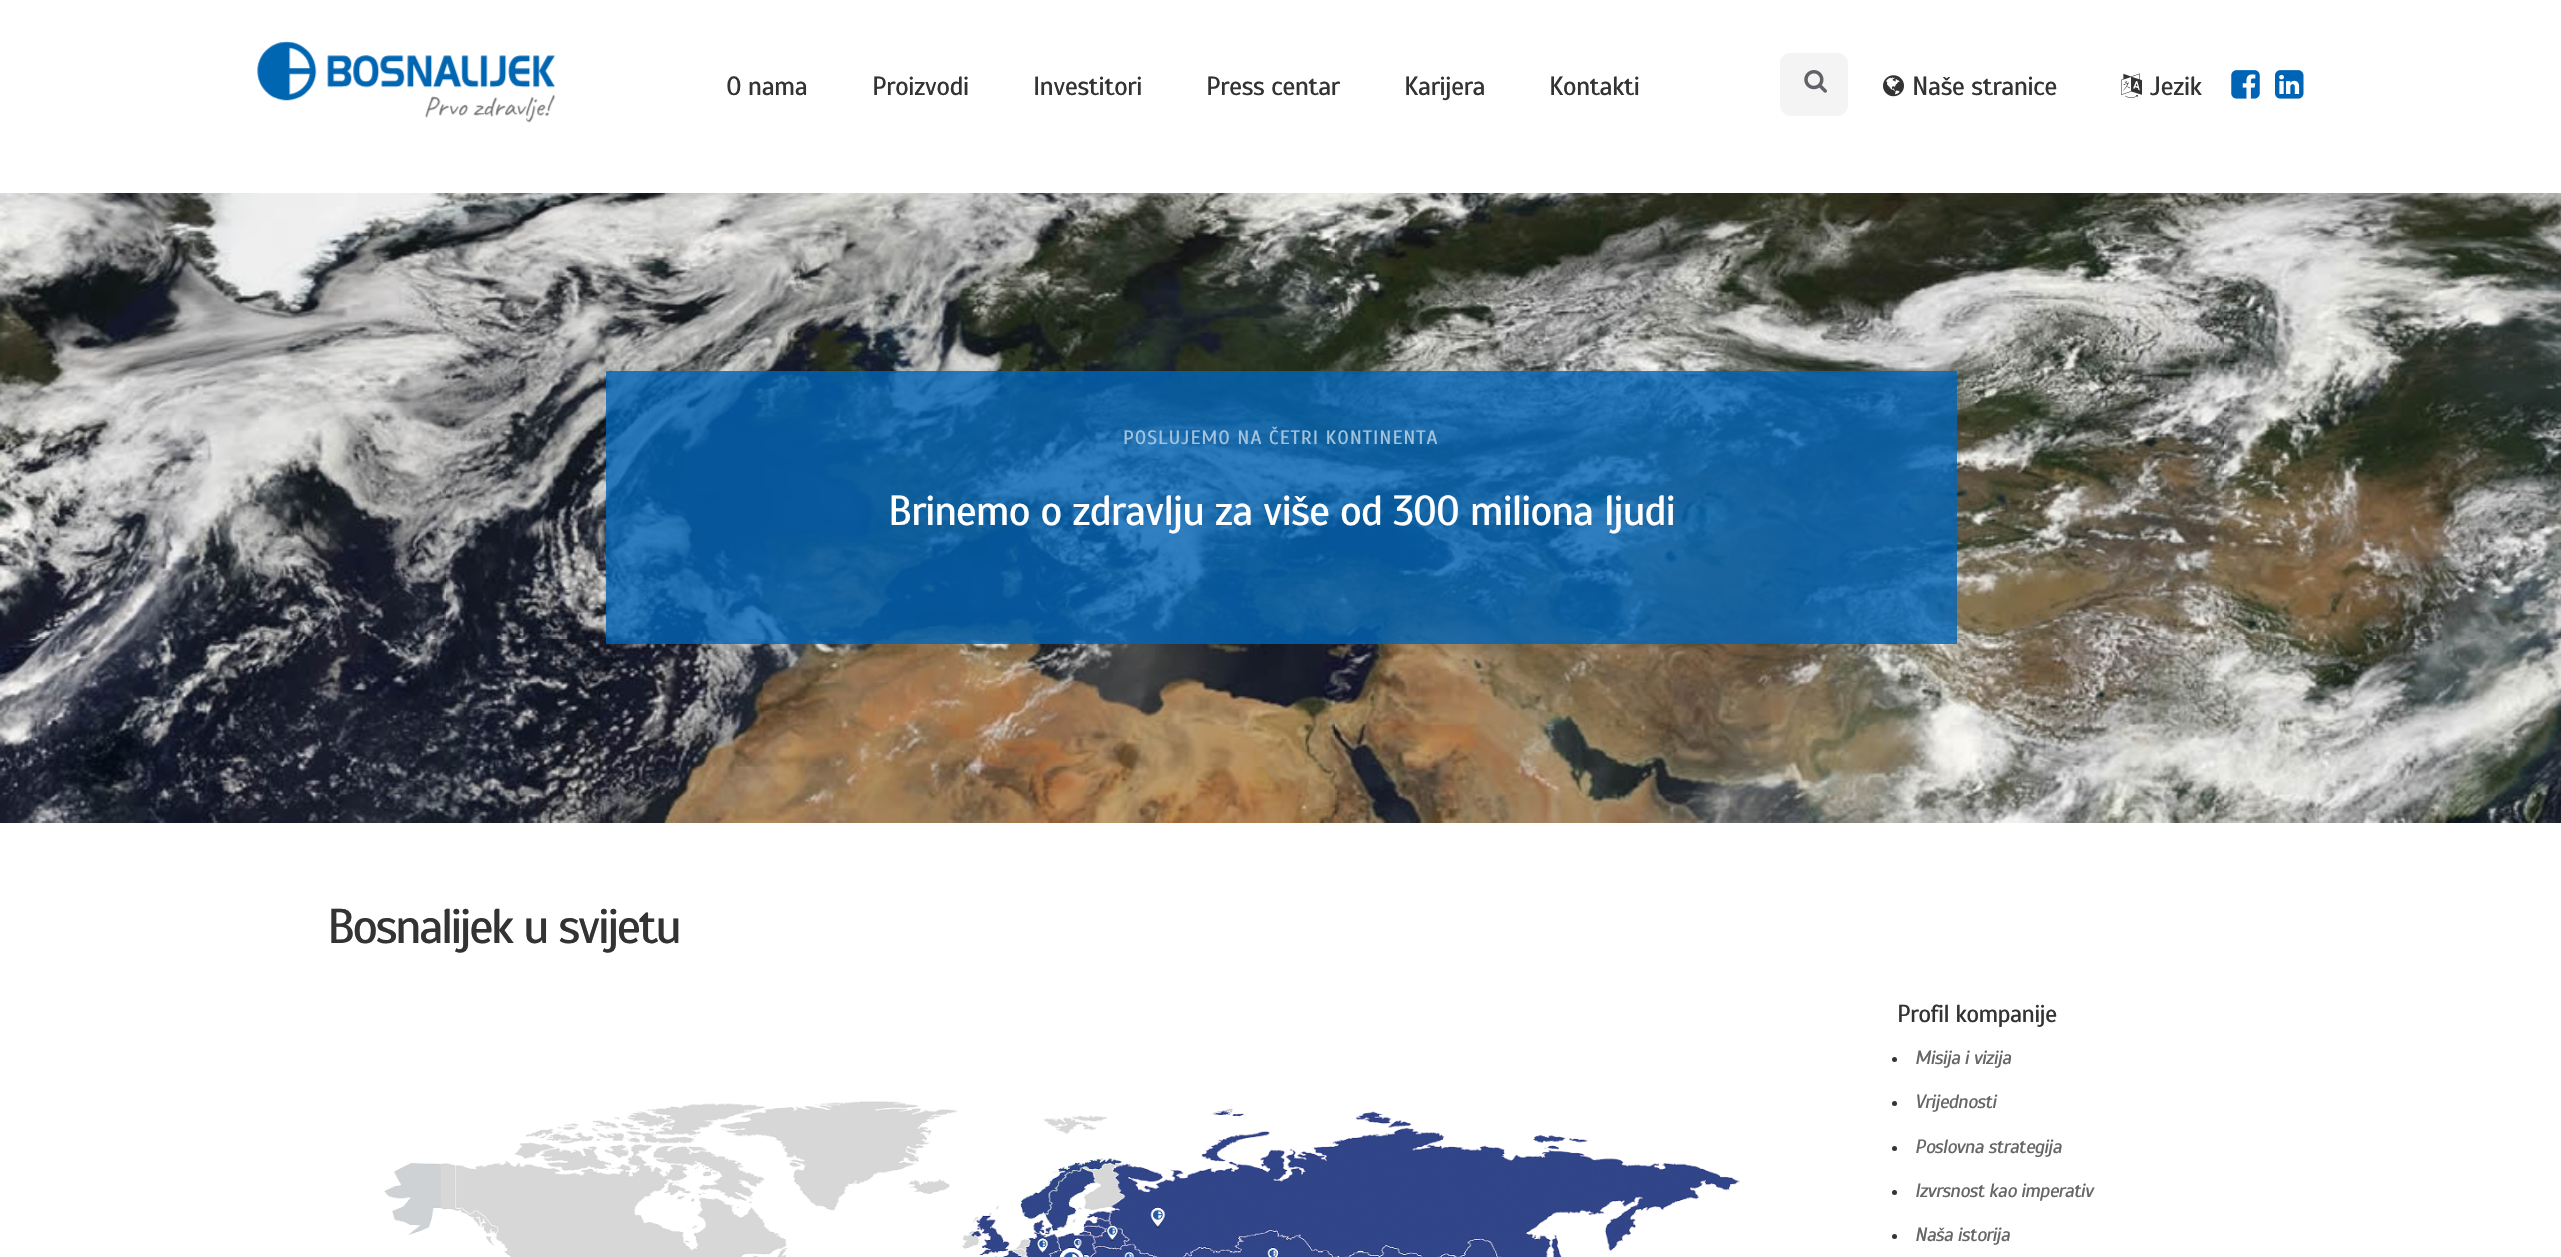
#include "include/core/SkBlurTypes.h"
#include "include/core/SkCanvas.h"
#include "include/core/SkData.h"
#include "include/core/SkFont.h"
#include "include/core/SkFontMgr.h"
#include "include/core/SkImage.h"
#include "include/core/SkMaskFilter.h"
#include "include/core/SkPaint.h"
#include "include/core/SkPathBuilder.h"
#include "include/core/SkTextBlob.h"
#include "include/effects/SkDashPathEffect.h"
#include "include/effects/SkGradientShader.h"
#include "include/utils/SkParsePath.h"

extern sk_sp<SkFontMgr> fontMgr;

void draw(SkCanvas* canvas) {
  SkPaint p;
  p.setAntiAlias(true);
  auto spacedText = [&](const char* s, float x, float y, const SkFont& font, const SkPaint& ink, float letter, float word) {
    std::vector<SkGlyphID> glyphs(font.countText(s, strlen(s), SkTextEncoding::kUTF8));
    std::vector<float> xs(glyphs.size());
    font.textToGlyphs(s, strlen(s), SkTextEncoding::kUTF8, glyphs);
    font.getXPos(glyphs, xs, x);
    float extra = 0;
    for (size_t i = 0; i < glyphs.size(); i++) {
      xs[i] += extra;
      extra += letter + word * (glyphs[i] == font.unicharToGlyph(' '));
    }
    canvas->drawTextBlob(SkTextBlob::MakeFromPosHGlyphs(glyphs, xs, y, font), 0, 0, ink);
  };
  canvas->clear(SK_ColorWHITE);
  canvas->drawImageRect(SkImages::DeferredFromEncodedData(SkData::MakeFromFileName("images/1.png")), SkRect::MakeLTRB(257, 41, 556, 123), SkSamplingOptions());
  p.setColor(SkColorSetRGB(244, 244, 244));
  canvas->drawRoundRect(SkRect::MakeLTRB(1780, 53, 1848, 116), 11, 11, p);
  canvas->drawImageRect(SkImages::DeferredFromEncodedData(SkData::MakeFromFileName("images/2.png")), SkRect::MakeLTRB(1804, 70, 1827, 93), SkSamplingOptions());
  canvas->drawImageRect(SkImages::DeferredFromEncodedData(SkData::MakeFromFileName("images/3.png")), SkRect::MakeLTRB(1883, 75, 1904, 97), SkSamplingOptions());
  canvas->drawImageRect(SkImages::DeferredFromEncodedData(SkData::MakeFromFileName("images/4.png")), SkRect::MakeLTRB(2121, 73, 2142, 98), SkSamplingOptions());
  canvas->drawImageRect(SkImages::DeferredFromEncodedData(SkData::MakeFromFileName("images/5.png")), SkRect::MakeLTRB(2231, 70, 2260, 99), SkSamplingOptions());
  canvas->drawImageRect(SkImages::DeferredFromEncodedData(SkData::MakeFromFileName("images/6.png")), SkRect::MakeLTRB(2275, 70, 2304, 99), SkSamplingOptions());
  canvas->drawImageRect(SkImages::DeferredFromEncodedData(SkData::MakeFromFileName("images/7.png")), SkRect::MakeLTRB(0, 193, 2561, 823), SkSamplingOptions());
  p.setColor(SkColorSetARGB(204, 0, 100, 182));
  canvas->drawRect(SkRect::MakeLTRB(606, 371, 1957, 644), p);
  canvas->drawImageRect(SkImages::DeferredFromEncodedData(SkData::MakeFromFileName("images/8.png")), SkRect::MakeLTRB(384, 1101, 1740, 1257), SkSamplingOptions());
  p.setColor(SkColorSetRGB(51, 51, 51));
  canvas->drawCircle(1894.5f, 1059.5f, 2.5f, p);
  canvas->drawCircle(1894.5f, 1103.5f, 2.5f, p);
  canvas->drawCircle(1894.5f, 1148.5f, 2.5f, p);
  canvas->drawCircle(1894.5f, 1192.5f, 2.5f, p);
  canvas->drawCircle(1894.5f, 1236.5f, 2.5f, p);
  SkFont font1(fontMgr->matchFamilyStyle("Scada", SkFontStyle::Normal()), 26.25f);
  font1.setSubpixel(true);
  spacedText("O nama", 726, 95, font1, p, -0.75f, 0);
  spacedText("Proizvodi", 872, 95, font1, p, -0.75f, 0);
  spacedText("Investitori", 1033, 95, font1, p, -0.75f, 0);
  spacedText("Press centar", 1206, 95, font1, p, -0.75f, 0);
  spacedText("Karijera", 1404, 95, font1, p, -0.75f, 0);
  spacedText("Kontakti", 1549, 95, font1, p, -0.75f, 0);
  spacedText("Naše stranice", 1912, 95, font1, p, -0.75f, 0);
  spacedText("Jezik", 2150, 95, font1, p, -0.75f, 0);
  SkFont font2(fontMgr->matchFamilyStyle("Scada", SkFontStyle::Normal()), 19.25f);
  font2.setSubpixel(true);
  p.setColor(SkColorSetRGB(162, 195, 220));
  spacedText("POSLUJEMO NA ČETRI KONTINENTA", 1123, 444, font2, p, 0.95f, 0);
  SkFont font3(fontMgr->matchFamilyStyle("Scada", SkFontStyle::Normal()), 42);
  font3.setSubpixel(true);
  p.setColor(SK_ColorWHITE);
  spacedText("Brinemo o zdravlju za više od 300 miliona ljudi", 888, 525, font3, p, -1.25f, 0);
  SkFont font4(fontMgr->matchFamilyStyle("Scada", SkFontStyle::Normal()), 49);
  font4.setSubpixel(true);
  p.setColor(SkColorSetRGB(51, 51, 51));
  spacedText("Bosnalijek u svijetu", 327, 943, font4, p, -2.9f, 0);
  SkFont font5(fontMgr->matchFamilyStyle("Scada", SkFontStyle::Normal()), 24.5f);
  font5.setSubpixel(true);
  spacedText("Profil kompanije", 1897, 1022, font5, p, -0.75f, 0);
  SkFont font6(fontMgr->matchFamilyStyle("Scada", SkFontStyle::Italic()), 19.25f);
  font6.setSubpixel(true);
  p.setColor(SkColorSetRGB(102, 102, 102));
  spacedText("Misija i vizija", 1915, 1064, font6, p, -0.75f, 0);
  spacedText("Vrijednosti", 1915, 1108, font6, p, -0.75f, 0);
  spacedText("Poslovna strategija", 1915, 1153, font6, p, -0.75f, 0);
  spacedText("Izvrsnost kao imperativ", 1915, 1197, font6, p, -0.75f, 0);
  spacedText("Naša istorija", 1915, 1241, font6, p, -0.75f, 0);
}
